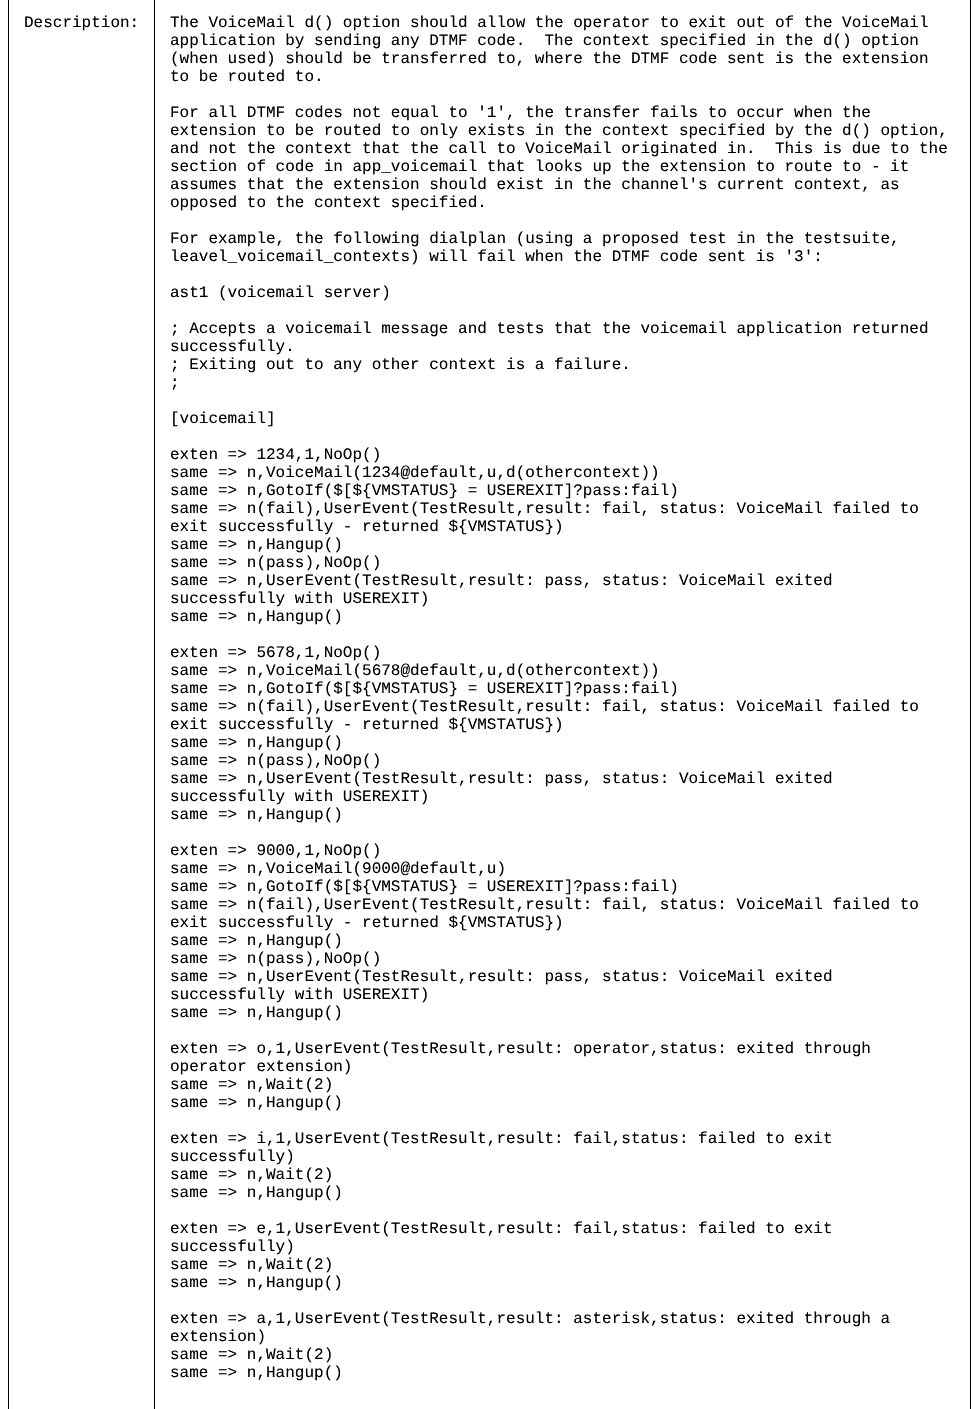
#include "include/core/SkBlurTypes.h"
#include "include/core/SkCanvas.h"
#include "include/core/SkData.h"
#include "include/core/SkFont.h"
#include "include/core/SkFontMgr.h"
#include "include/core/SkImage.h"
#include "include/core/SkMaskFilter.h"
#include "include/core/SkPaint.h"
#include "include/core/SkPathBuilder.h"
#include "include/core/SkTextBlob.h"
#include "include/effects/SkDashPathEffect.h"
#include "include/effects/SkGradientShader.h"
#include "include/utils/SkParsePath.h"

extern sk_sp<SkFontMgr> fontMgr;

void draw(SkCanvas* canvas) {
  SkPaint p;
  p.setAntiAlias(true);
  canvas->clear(SK_ColorWHITE);
  p.setColor(SK_ColorBLACK);
  canvas->drawRect(SkRect::MakeLTRB(8, 0, 9, 1409), p);
  canvas->drawRect(SkRect::MakeLTRB(970, 0, 971, 1409), p);
  canvas->drawRect(SkRect::MakeLTRB(154, 0, 155, 1409), p);
  SkFont font1(fontMgr->matchFamilyStyle("Liberation Mono", SkFontStyle::Normal()), 16);
  font1.setSubpixel(true);
  canvas->drawString("Description:", 24, 27, font1, p);
  canvas->drawString("The VoiceMail d() option should allow the operator to exit out of the VoiceMail", 170, 27, font1, p);
  canvas->drawString("application by sending any DTMF code.  The context specified in the d() option", 170, 45, font1, p);
  canvas->drawString("(when used) should be transferred to, where the DTMF code sent is the extension", 170, 63, font1, p);
  canvas->drawString("to be routed to.", 170, 81, font1, p);
  canvas->drawString("For all DTMF codes not equal to '1', the transfer fails to occur when the", 170, 117, font1, p);
  canvas->drawString("extension to be routed to only exists in the context specified by the d() option,", 170, 135, font1, p);
  canvas->drawString("and not the context that the call to VoiceMail originated in.  This is due to the", 170, 153, font1, p);
  canvas->drawString("section of code in app_voicemail that looks up the extension to route to - it", 170, 171, font1, p);
  canvas->drawString("assumes that the extension should exist in the channel's current context, as", 170, 189, font1, p);
  canvas->drawString("opposed to the context specified.", 170, 207, font1, p);
  canvas->drawString("For example, the following dialplan (using a proposed test in the testsuite,", 170, 243, font1, p);
  canvas->drawString("leavel_voicemail_contexts) will fail when the DTMF code sent is '3':", 170, 261, font1, p);
  canvas->drawString("ast1 (voicemail server)", 170, 297, font1, p);
  canvas->drawString("; Accepts a voicemail message and tests that the voicemail application returned", 170, 333, font1, p);
  canvas->drawString("successfully.", 170, 351, font1, p);
  canvas->drawString("; Exiting out to any other context is a failure.", 170, 369, font1, p);
  canvas->drawString(";", 170, 387, font1, p);
  canvas->drawString("[voicemail]", 170, 423, font1, p);
  canvas->drawString("exten => 1234,1,NoOp()", 170, 459, font1, p);
  canvas->drawString("same => n,VoiceMail(1234@default,u,d(othercontext))", 170, 477, font1, p);
  canvas->drawString("same => n,GotoIf($[${VMSTATUS} = USEREXIT]?pass:fail)", 170, 495, font1, p);
  canvas->drawString("same => n(fail),UserEvent(TestResult,result: fail, status: VoiceMail failed to", 170, 513, font1, p);
  canvas->drawString("exit successfully - returned ${VMSTATUS})", 170, 531, font1, p);
  canvas->drawString("same => n,Hangup()", 170, 549, font1, p);
  canvas->drawString("same => n(pass),NoOp()", 170, 567, font1, p);
  canvas->drawString("same => n,UserEvent(TestResult,result: pass, status: VoiceMail exited", 170, 585, font1, p);
  canvas->drawString("successfully with USEREXIT)", 170, 603, font1, p);
  canvas->drawString("same => n,Hangup()", 170, 621, font1, p);
  canvas->drawString("exten => 5678,1,NoOp()", 170, 657, font1, p);
  canvas->drawString("same => n,VoiceMail(5678@default,u,d(othercontext))", 170, 675, font1, p);
  canvas->drawString("same => n,GotoIf($[${VMSTATUS} = USEREXIT]?pass:fail)", 170, 693, font1, p);
  canvas->drawString("same => n(fail),UserEvent(TestResult,result: fail, status: VoiceMail failed to", 170, 711, font1, p);
  canvas->drawString("exit successfully - returned ${VMSTATUS})", 170, 729, font1, p);
  canvas->drawString("same => n,Hangup()", 170, 747, font1, p);
  canvas->drawString("same => n(pass),NoOp()", 170, 765, font1, p);
  canvas->drawString("same => n,UserEvent(TestResult,result: pass, status: VoiceMail exited", 170, 783, font1, p);
  canvas->drawString("successfully with USEREXIT)", 170, 801, font1, p);
  canvas->drawString("same => n,Hangup()", 170, 819, font1, p);
  canvas->drawString("exten => 9000,1,NoOp()", 170, 855, font1, p);
  canvas->drawString("same => n,VoiceMail(9000@default,u)", 170, 873, font1, p);
  canvas->drawString("same => n,GotoIf($[${VMSTATUS} = USEREXIT]?pass:fail)", 170, 891, font1, p);
  canvas->drawString("same => n(fail),UserEvent(TestResult,result: fail, status: VoiceMail failed to", 170, 909, font1, p);
  canvas->drawString("exit successfully - returned ${VMSTATUS})", 170, 927, font1, p);
  canvas->drawString("same => n,Hangup()", 170, 945, font1, p);
  canvas->drawString("same => n(pass),NoOp()", 170, 963, font1, p);
  canvas->drawString("same => n,UserEvent(TestResult,result: pass, status: VoiceMail exited", 170, 981, font1, p);
  canvas->drawString("successfully with USEREXIT)", 170, 999, font1, p);
  canvas->drawString("same => n,Hangup()", 170, 1017, font1, p);
  canvas->drawString("exten => o,1,UserEvent(TestResult,result: operator,status: exited through", 170, 1053, font1, p);
  canvas->drawString("operator extension)", 170, 1071, font1, p);
  canvas->drawString("same => n,Wait(2)", 170, 1089, font1, p);
  canvas->drawString("same => n,Hangup()", 170, 1107, font1, p);
  canvas->drawString("exten => i,1,UserEvent(TestResult,result: fail,status: failed to exit", 170, 1143, font1, p);
  canvas->drawString("successfully)", 170, 1161, font1, p);
  canvas->drawString("same => n,Wait(2)", 170, 1179, font1, p);
  canvas->drawString("same => n,Hangup()", 170, 1197, font1, p);
  canvas->drawString("exten => e,1,UserEvent(TestResult,result: fail,status: failed to exit", 170, 1233, font1, p);
  canvas->drawString("successfully)", 170, 1251, font1, p);
  canvas->drawString("same => n,Wait(2)", 170, 1269, font1, p);
  canvas->drawString("same => n,Hangup()", 170, 1287, font1, p);
  canvas->drawString("exten => a,1,UserEvent(TestResult,result: asterisk,status: exited through a", 170, 1323, font1, p);
  canvas->drawString("extension)", 170, 1341, font1, p);
  canvas->drawString("same => n,Wait(2)", 170, 1359, font1, p);
  canvas->drawString("same => n,Hangup()", 170, 1377, font1, p);
}
